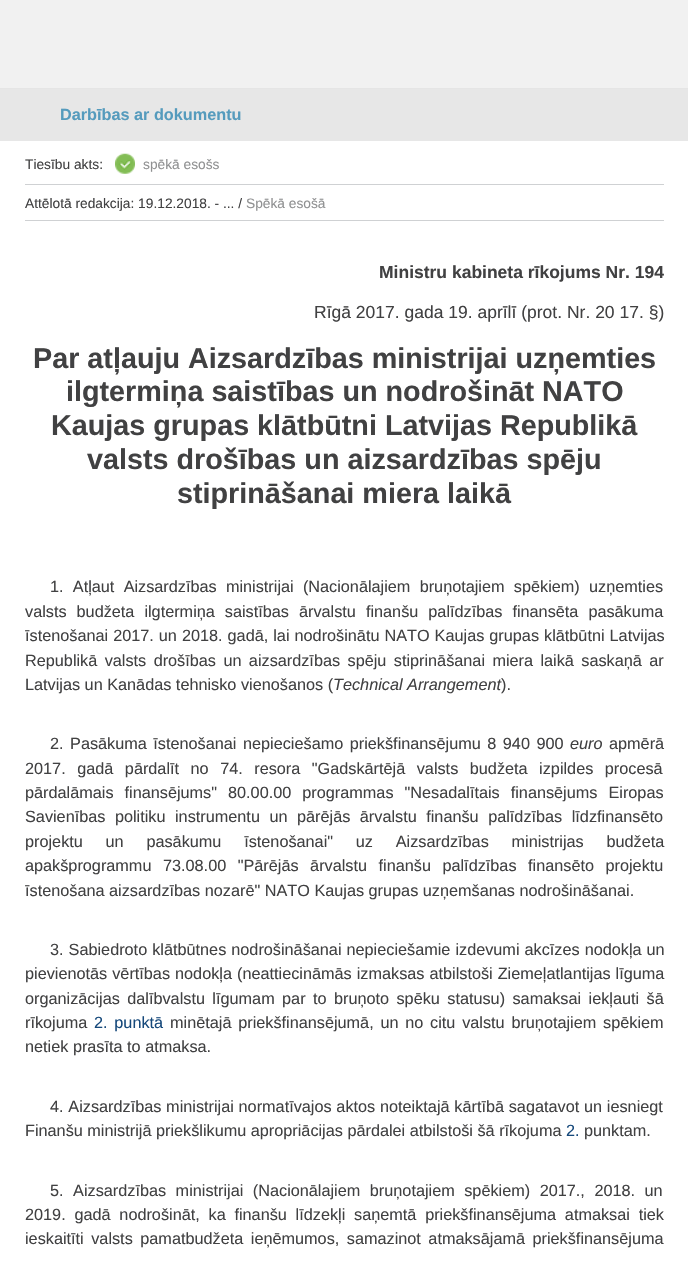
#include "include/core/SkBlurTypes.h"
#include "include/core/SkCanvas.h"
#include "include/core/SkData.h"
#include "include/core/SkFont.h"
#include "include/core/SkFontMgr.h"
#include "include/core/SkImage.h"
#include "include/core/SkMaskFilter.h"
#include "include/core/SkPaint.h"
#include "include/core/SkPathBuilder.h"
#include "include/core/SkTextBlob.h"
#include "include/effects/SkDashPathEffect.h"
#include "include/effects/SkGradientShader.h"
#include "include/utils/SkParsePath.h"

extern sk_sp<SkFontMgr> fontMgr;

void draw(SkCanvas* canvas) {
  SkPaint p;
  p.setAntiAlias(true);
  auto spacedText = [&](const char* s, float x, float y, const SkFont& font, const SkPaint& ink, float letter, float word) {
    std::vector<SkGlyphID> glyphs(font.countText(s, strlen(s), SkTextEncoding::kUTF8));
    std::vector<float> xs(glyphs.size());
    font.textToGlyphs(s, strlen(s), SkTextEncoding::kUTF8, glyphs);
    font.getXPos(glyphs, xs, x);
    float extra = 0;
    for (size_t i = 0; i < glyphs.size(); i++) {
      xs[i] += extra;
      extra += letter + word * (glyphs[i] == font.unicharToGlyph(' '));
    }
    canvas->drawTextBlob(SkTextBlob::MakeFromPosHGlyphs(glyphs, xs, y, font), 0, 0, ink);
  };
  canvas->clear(SK_ColorWHITE);
  p.setColor(SkColorSetRGB(241, 241, 241));
  canvas->drawRect(SkRect::MakeLTRB(0, 0, 688, 88), p);
  p.setColor(SkColorSetRGB(229, 229, 229));
  canvas->drawRect(SkRect::MakeLTRB(0, 88, 688, 89), p);
  p.setColor(SkColorSetRGB(231, 231, 231));
  canvas->drawRect(SkRect::MakeLTRB(0, 89, 688, 141), p);
  p.setColor(SkColorSetRGB(207, 209, 211));
  canvas->drawRect(SkRect::MakeLTRB(25, 184, 664, 185), p);
  canvas->drawImageRect(SkImages::DeferredFromEncodedData(SkData::MakeFromFileName("images/1.png")), SkRect::MakeLTRB(115, 153, 135, 174), SkSamplingOptions());
  canvas->drawRect(SkRect::MakeLTRB(25, 220, 664, 221), p);
  SkFont font1(fontMgr->matchFamilyStyle("Liberation Sans", SkFontStyle::Bold()), 16.25f);
  font1.setSubpixel(true);
  p.setColor(SkColorSetRGB(85, 155, 189));
  canvas->drawString("Darbības ar dokumentu", 60, 120, font1, p);
  SkFont font2(fontMgr->matchFamilyStyle("Liberation Sans", SkFontStyle::Normal()), 13.75f);
  font2.setSubpixel(true);
  p.setColor(SkColorSetRGB(65, 65, 66));
  canvas->drawString("Tiesību akts:", 25, 169, font2, p);
  p.setColor(SkColorSetRGB(144, 145, 146));
  canvas->drawString("spēkā esošs", 143, 169, font2, p);
  p.setColor(SkColorSetRGB(65, 65, 66));
  canvas->drawString("Attēlotā redakcija: 19.12.2018. - ... /", 25, 208, font2, p);
  p.setColor(SkColorSetRGB(144, 145, 146));
  canvas->drawString("Spēkā esošā", 246, 208, font2, p);
  SkFont font3(fontMgr->matchFamilyStyle("Liberation Sans", SkFontStyle::Bold()), 17.5f);
  font3.setSubpixel(true);
  p.setColor(SkColorSetRGB(65, 65, 66));
  canvas->drawString("Ministru kabineta rīkojums Nr. 194", 379, 278, font3, p);
  SkFont font4(fontMgr->matchFamilyStyle("Liberation Sans", SkFontStyle::Normal()), 17.5f);
  font4.setSubpixel(true);
  canvas->drawString("Rīgā 2017. gada 19. aprīlī (prot. Nr. 20 17. §)", 314, 318, font4, p);
  SkFont font5(fontMgr->matchFamilyStyle("Liberation Sans", SkFontStyle::Bold()), 28.75f);
  font5.setSubpixel(true);
  canvas->drawString("Par atļauju Aizsardzības ministrijai uzņemties", 33, 368, font5, p);
  canvas->drawString("ilgtermiņa saistības un nodrošināt NATO", 66, 401, font5, p);
  canvas->drawString("Kaujas grupas klātbūtni Latvijas Republikā", 51, 435, font5, p);
  canvas->drawString("valsts drošības un aizsardzības spēju", 87, 469, font5, p);
  canvas->drawString("stiprināšanai miera laikā", 177, 503, font5, p);
  SkFont font6(fontMgr->matchFamilyStyle("Liberation Sans", SkFontStyle::Normal()), 16.25f);
  font6.setSubpixel(true);
  spacedText("1. Atļaut Aizsardzības ministrijai (Nacionālajiem bruņotajiem spēkiem) uzņemties", 50, 592, font6, p, 0, 4.75f);
  spacedText("valsts budžeta ilgtermiņa saistības ārvalstu finanšu palīdzības finansēta pasākuma", 25, 617, font6, p, 0, 5.5f);
  spacedText("īstenošanai 2017. un 2018. gadā, lai nodrošinātu NATO Kaujas grupas klātbūtni Latvijas", 25, 641, font6, p, 0, 0.5f);
  spacedText("Republikā valsts drošības un aizsardzības spēju stiprināšanai miera laikā saskaņā ar", 25, 666, font6, p, 0, 2.9f);
  canvas->drawString("Latvijas un Kanādas tehnisko vienošanos (", 25, 690, font6, p);
  SkFont font7(fontMgr->matchFamilyStyle("Liberation Sans", SkFontStyle::Italic()), 16.25f);
  font7.setSubpixel(true);
  canvas->drawString("Technical Arrangement", 333, 690, font7, p);
  canvas->drawString(").", 501, 690, font6, p);
  spacedText("2. Pasākuma īstenošanai nepieciešamo priekšfinansējumu 8 940 900", 50, 749, font6, p, 0, 2);
  canvas->drawString("euro", 570, 749, font7, p);
  canvas->drawString("apmērā", 609, 749, font6, p);
  spacedText("2017. gadā pārdalīt no 74. resora \"Gadskārtējā valsts budžeta izpildes procesā", 25, 774, font6, p, 0, 7);
  spacedText("pārdalāmais finansējums\" 80.00.00 programmas \"Nesadalītais finansējums Eiropas", 25, 798, font6, p, 0, 6.5f);
  spacedText("Savienības politiku instrumentu un pārējās ārvalstu finanšu palīdzības līdzfinansēto", 25, 822, font6, p, 0, 5);
  spacedText("projektu un pasākumu īstenošanai\" uz Aizsardzības ministrijas budžeta", 25, 847, font6, p, 0, 18.25f);
  spacedText("apakšprogrammu 73.08.00 \"Pārējās ārvalstu finanšu palīdzības finansēto projektu", 25, 871, font6, p, 0, 7);
  canvas->drawString("īstenošana aizsardzības nozarē\" NATO Kaujas grupas uzņemšanas nodrošināšanai.", 25, 896, font6, p);
  spacedText("3. Sabiedroto klātbūtnes nodrošināšanai nepieciešamie izdevumi akcīzes nodokļa un", 50, 955, font6, p, 0, 0.5f);
  spacedText("pievienotās vērtības nodokļa (neattiecināmās izmaksas atbilstoši Ziemeļatlantijas līguma", 25, 979, font6, p, 0, 0.5f);
  spacedText("organizācijas dalībvalstu līgumam par to bruņoto spēku statusu) samaksai iekļauti šā", 25, 1004, font6, p, 0, 2.9f);
  canvas->drawString("rīkojuma", 25, 1028, font6, p);
  p.setColor(SkColorSetRGB(22, 73, 123));
  spacedText("2. punktā", 94, 1028, font6, p, 0, 2.25f);
  p.setColor(SkColorSetRGB(65, 65, 66));
  spacedText("minētajā priekšfinansējumā, un no citu valstu bruņotajiem spēkiem", 170, 1028, font6, p, 0, 2.25f);
  canvas->drawString("netiek prasīta to atmaksa.", 25, 1052, font6, p);
  spacedText("4. Aizsardzības ministrijai normatīvajos aktos noteiktajā kārtībā sagatavot un iesniegt", 50, 1112, font6, p, 0, 0.25f);
  canvas->drawString("Finanšu ministrijā priekšlikumu apropriācijas pārdalei atbilstoši šā rīkojuma", 25, 1136, font6, p);
  p.setColor(SkColorSetRGB(22, 73, 123));
  canvas->drawString("2.", 566, 1136, font6, p);
  p.setColor(SkColorSetRGB(65, 65, 66));
  canvas->drawString("punktam.", 584, 1136, font6, p);
  spacedText("5. Aizsardzības ministrijai (Nacionālajiem bruņotajiem spēkiem) 2017., 2018. un", 50, 1196, font6, p, 0, 5);
  spacedText("2019. gadā nodrošināt, ka finanšu līdzekļi saņemtā priekšfinansējuma atmaksai tiek", 25, 1220, font6, p, 0, 4.25f);
  spacedText("ieskaitīti valsts pamatbudžeta ieņēmumos, samazinot atmaksājamā priekšfinansējuma", 25, 1244, font6, p, 0, 3);
}
